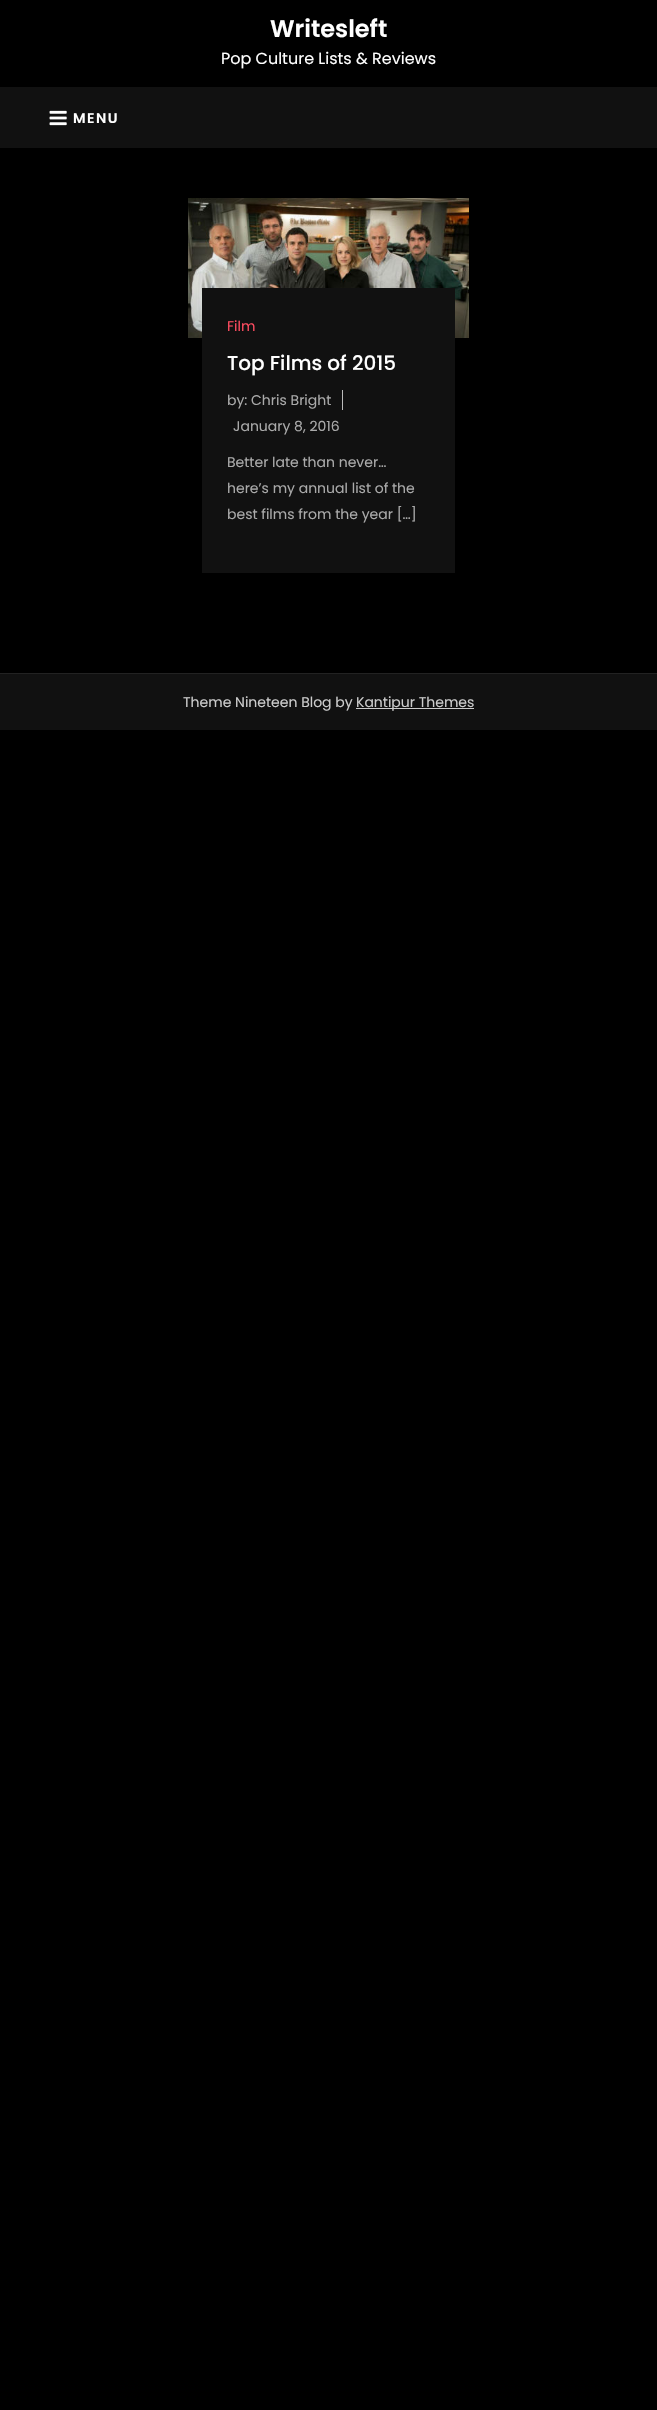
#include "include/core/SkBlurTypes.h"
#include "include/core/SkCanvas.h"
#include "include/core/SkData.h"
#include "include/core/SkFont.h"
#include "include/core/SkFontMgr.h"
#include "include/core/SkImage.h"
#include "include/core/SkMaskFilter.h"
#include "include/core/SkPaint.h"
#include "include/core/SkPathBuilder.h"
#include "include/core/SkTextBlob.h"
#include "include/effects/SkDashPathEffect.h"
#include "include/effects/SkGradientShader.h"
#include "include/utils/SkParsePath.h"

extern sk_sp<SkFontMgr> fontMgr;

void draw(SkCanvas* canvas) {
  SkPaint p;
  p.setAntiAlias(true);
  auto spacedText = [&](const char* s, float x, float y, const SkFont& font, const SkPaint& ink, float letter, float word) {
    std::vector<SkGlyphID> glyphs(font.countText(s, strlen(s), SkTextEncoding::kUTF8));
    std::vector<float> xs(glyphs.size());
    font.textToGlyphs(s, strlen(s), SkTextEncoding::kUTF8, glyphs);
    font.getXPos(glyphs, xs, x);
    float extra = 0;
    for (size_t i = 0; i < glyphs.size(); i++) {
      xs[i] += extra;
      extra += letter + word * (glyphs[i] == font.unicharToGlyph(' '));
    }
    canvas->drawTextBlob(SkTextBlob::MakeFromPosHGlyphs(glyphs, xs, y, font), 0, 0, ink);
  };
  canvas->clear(SK_ColorBLACK);
  p.setColor(SkColorSetRGB(17, 17, 17));
  canvas->drawRect(SkRect::MakeLTRB(0, 87, 657, 148), p);
  canvas->drawImageRect(SkImages::DeferredFromEncodedData(SkData::MakeFromFileName("images/1.png")), SkRect::MakeLTRB(49, 110, 67, 126), SkSamplingOptions());
  canvas->drawImageRect(SkImages::DeferredFromEncodedData(SkData::MakeFromFileName("images/2.png")), SkRect::MakeLTRB(188, 198, 469, 338), SkSamplingOptions());
  canvas->drawRect(SkRect::MakeLTRB(202, 288, 455, 573), p);
  p.setColor(SkColorSetRGB(187, 187, 187));
  canvas->drawRect(SkRect::MakeLTRB(342, 390, 343, 410), p);
  p.setColor(SkColorSetRGB(17, 17, 17));
  canvas->drawRect(SkRect::MakeLTRB(0, 674, 657, 730), p);
  p.setColor(SkColorSetRGB(34, 34, 34));
  canvas->drawRect(SkRect::MakeLTRB(0, 673, 657, 674), p);
  p.setColor(SkColorSetRGB(204, 204, 204));
  canvas->drawRect(SkRect::MakeLTRB(356, 708, 474, 709), p);
  SkFont font1(fontMgr->matchFamilyStyle("Poppins", SkFontStyle(600, SkFontStyle::kNormal_Width, SkFontStyle::kUpright_Slant)), 24);
  font1.setSubpixel(true);
  p.setColor(SK_ColorWHITE);
  canvas->drawString("Writesleft", 270, 37, font1, p);
  SkFont font2(fontMgr->matchFamilyStyle("Poppins", SkFontStyle::Normal()), 16);
  font2.setSubpixel(true);
  canvas->drawString("Pop Culture Lists & Reviews", 221, 64, font2, p);
  SkFont font3(fontMgr->matchFamilyStyle("Poppins", SkFontStyle(600, SkFontStyle::kNormal_Width, SkFontStyle::kUpright_Slant)), 14);
  font3.setSubpixel(true);
  spacedText("MENU", 73, 123, font3, p, 1.5f, 0);
  SkFont font4(fontMgr->matchFamilyStyle("Poppins", SkFontStyle::Normal()), 14);
  font4.setSubpixel(true);
  p.setColor(SkColorSetRGB(255, 76, 96));
  canvas->drawString("Film", 227, 331, font4, p);
  SkFont font5(fontMgr->matchFamilyStyle("Poppins", SkFontStyle(500, SkFontStyle::kNormal_Width, SkFontStyle::kUpright_Slant)), 20);
  font5.setSubpixel(true);
  p.setColor(SK_ColorWHITE);
  canvas->drawString("Top Films of 2015", 227, 370, font5, p);
  p.setColor(SkColorSetRGB(170, 170, 170));
  canvas->drawString("by: Chris Bright", 227, 405, font4, p);
  canvas->drawString("January 8, 2016", 233, 431, font4, p);
  canvas->drawString("Better late than never…", 227, 467, font4, p);
  canvas->drawString("here’s my annual list of the", 227, 493, font4, p);
  canvas->drawString("best films from the year […]", 227, 519, font4, p);
  p.setColor(SkColorSetRGB(204, 204, 204));
  canvas->drawString("Theme Nineteen Blog by", 183, 707, font4, p);
  canvas->drawString("Kantipur Themes", 356, 707, font4, p);
}
